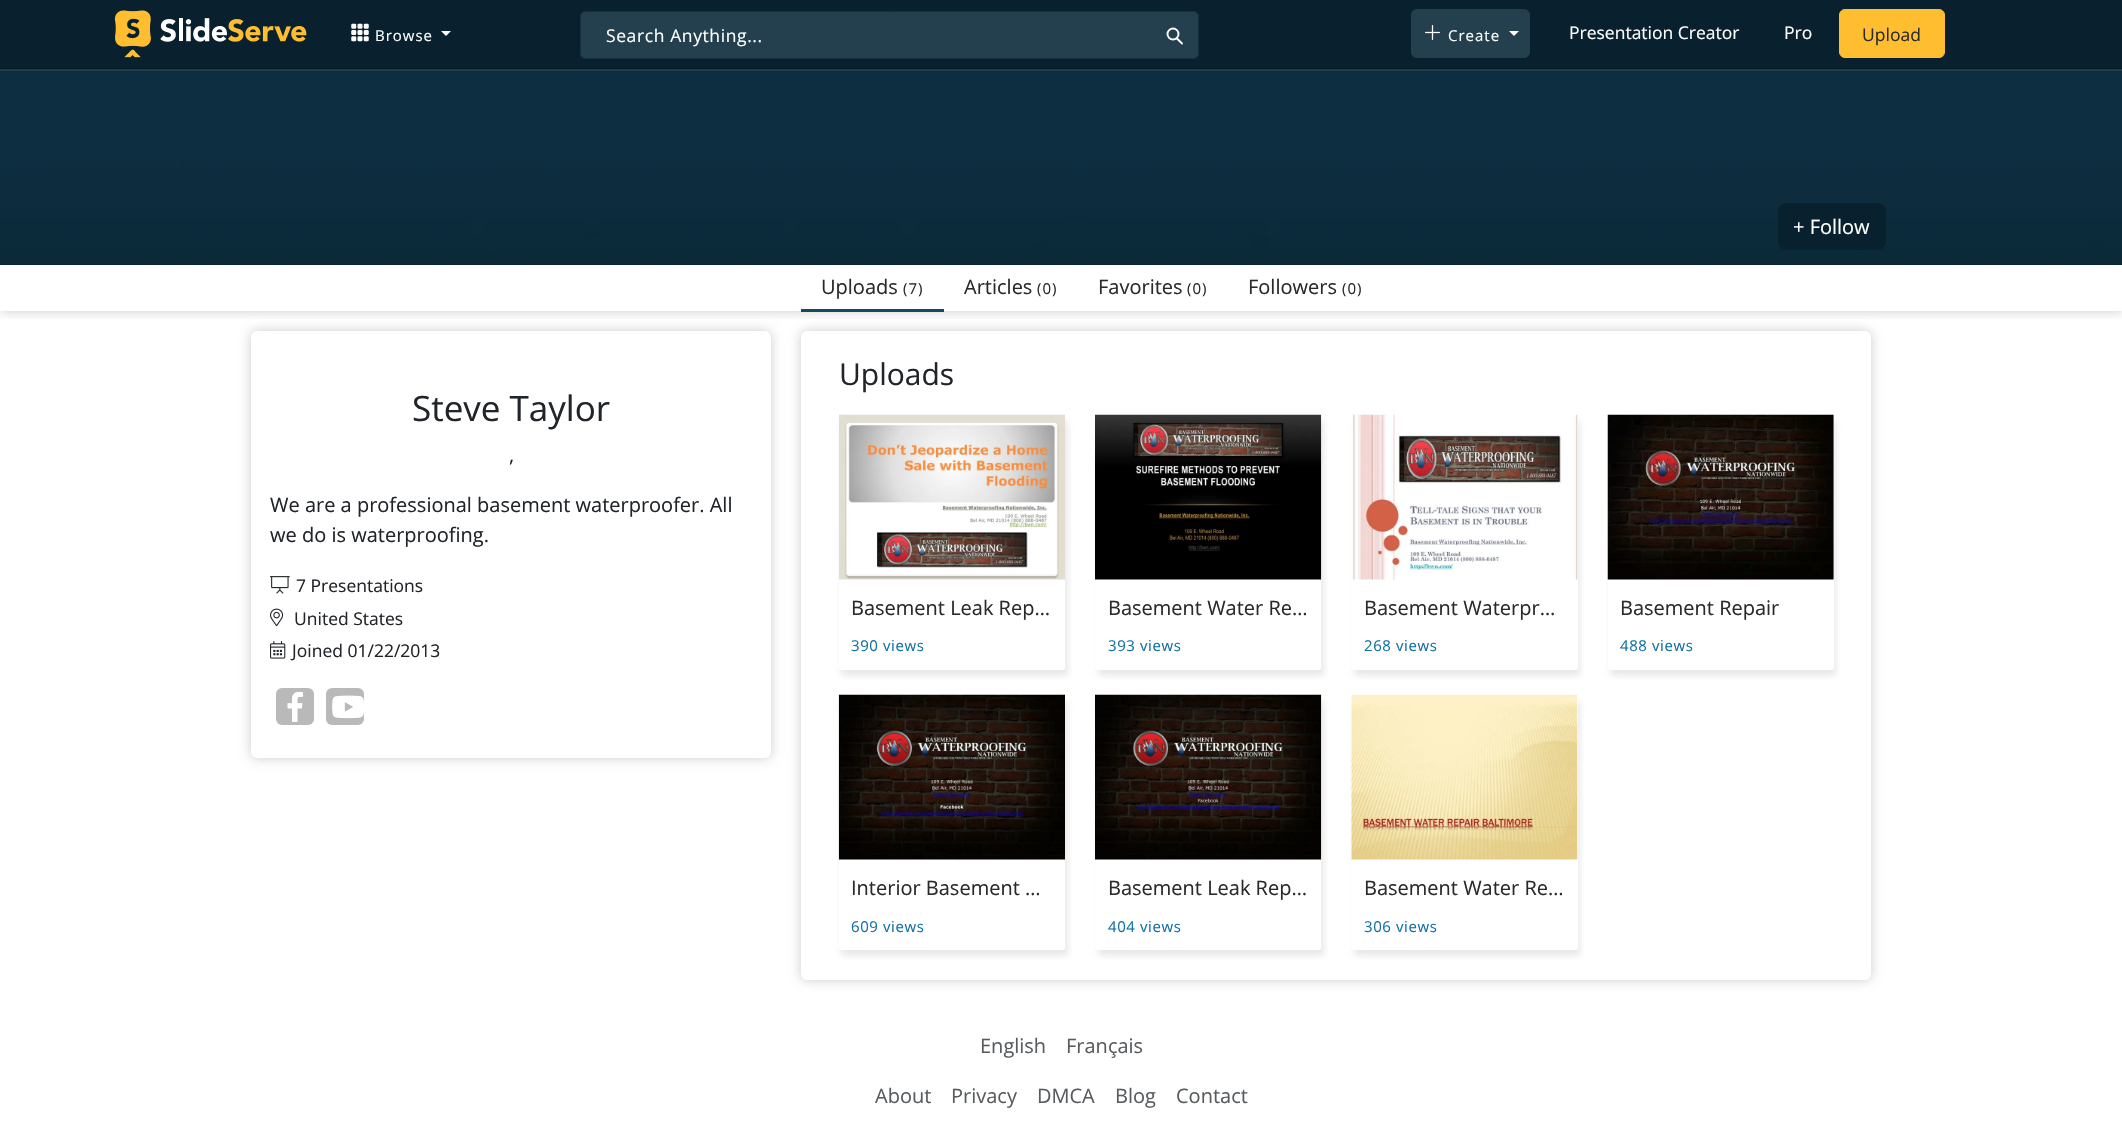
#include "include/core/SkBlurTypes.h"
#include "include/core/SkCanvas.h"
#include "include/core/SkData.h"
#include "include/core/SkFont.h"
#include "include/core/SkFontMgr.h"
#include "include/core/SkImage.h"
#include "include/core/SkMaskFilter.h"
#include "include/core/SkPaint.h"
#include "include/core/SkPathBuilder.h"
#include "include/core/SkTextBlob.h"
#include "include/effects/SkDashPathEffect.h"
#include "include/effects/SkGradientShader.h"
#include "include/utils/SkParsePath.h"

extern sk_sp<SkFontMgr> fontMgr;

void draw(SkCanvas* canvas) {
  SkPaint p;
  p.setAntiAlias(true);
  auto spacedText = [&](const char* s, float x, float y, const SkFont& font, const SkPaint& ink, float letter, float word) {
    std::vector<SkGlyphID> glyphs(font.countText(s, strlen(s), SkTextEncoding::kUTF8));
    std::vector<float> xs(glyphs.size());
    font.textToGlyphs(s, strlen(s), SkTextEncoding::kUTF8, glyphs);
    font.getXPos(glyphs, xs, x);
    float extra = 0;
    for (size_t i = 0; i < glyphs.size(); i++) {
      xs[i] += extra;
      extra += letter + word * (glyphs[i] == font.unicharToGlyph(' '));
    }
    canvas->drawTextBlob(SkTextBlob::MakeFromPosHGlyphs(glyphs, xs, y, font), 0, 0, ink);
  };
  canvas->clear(SK_ColorWHITE);
  p.setColor(SkColorSetRGB(30, 61, 78));
  canvas->drawPath(SkPathBuilder().moveTo(0, 69).lineTo(0, 71).lineTo(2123, 71).lineTo(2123, 3).lineTo(2122, 3).lineTo(2122, 69).close().detach(), p);
  p.setColor(SkColorSetRGB(9, 33, 46));
  canvas->drawRect(SkRect::MakeLTRB(0, 0, 2122, 68), p);
  p.setColor(SkColorSetRGB(6, 25, 36));
  canvas->drawRect(SkRect::MakeLTRB(0, 68, 2122, 69), p);
  canvas->drawImageRect(SkImages::DeferredFromEncodedData(SkData::MakeFromFileName("images/1.png")), SkRect::MakeLTRB(114, 10, 307, 58), SkSamplingOptions());
  canvas->drawImageRect(SkImages::DeferredFromEncodedData(SkData::MakeFromFileName("images/2.png")), SkRect::MakeLTRB(351, 23, 369, 42), SkSamplingOptions());
  p.setColor(SK_ColorWHITE);
  canvas->drawPath(SkPathBuilder().moveTo(441, 31).lineTo(451, 31).lineTo(446, 36).close().detach(), p);
  p.setColor(SkColorSetRGB(36, 63, 78));
  canvas->drawRoundRect(SkRect::MakeLTRB(1411.5f, 9.5f, 1529.5f, 57.5f), 5.5f, 5.5f, p);
  p.setStyle(SkPaint::kStroke_Style);
  p.setStrokeWidth(1);
  canvas->drawRoundRect(SkRect::MakeLTRB(1411.5f, 9.5f, 1529.5f, 57.5f), 5.5f, 5.5f, p);
  canvas->drawImageRect(SkImages::DeferredFromEncodedData(SkData::MakeFromFileName("images/3.png")), SkRect::MakeLTRB(1425, 25, 1440, 40), SkSamplingOptions());
  p.setStyle(SkPaint::kFill_Style);
  p.setColor(SK_ColorWHITE);
  canvas->drawPath(SkPathBuilder().moveTo(1509, 31).lineTo(1519, 31).lineTo(1514, 36).close().detach(), p);
  p.setColor(SkColorSetRGB(255, 190, 47));
  canvas->drawRoundRect(SkRect::MakeLTRB(1839.5f, 9.5f, 1944.5f, 57.5f), 5.5f, 5.5f, p);
  p.setStyle(SkPaint::kStroke_Style);
  canvas->drawRoundRect(SkRect::MakeLTRB(1839.5f, 9.5f, 1944.5f, 57.5f), 5.5f, 5.5f, p);
  p.setStyle(SkPaint::kFill_Style);
  p.setColor(SkColorSetRGB(36, 63, 78));
  canvas->drawRoundRect(SkRect::MakeLTRB(580, 11, 1199, 59), 6, 6, p);
  p.setStyle(SkPaint::kStroke_Style);
  p.setStrokeWidth(1.9f);
  p.setColor(SK_ColorWHITE);
  canvas->drawCircle(1173, 34, 5.5f, p);
  p.setStrokeCap(SkPaint::kRound_Cap);
  p.setStrokeJoin(SkPaint::kRound_Join);
  canvas->drawPath(SkPathBuilder().moveTo(1182, 43.5f).lineTo(1177, 38.5f).detach(), p);
  p.setStrokeWidth(1);
  p.setStrokeCap(SkPaint::kButt_Cap);
  p.setStrokeJoin(SkPaint::kMiter_Join);
  p.setColor(SkColorSetRGB(21, 46, 64));
  canvas->drawRoundRect(SkRect::MakeLTRB(580.5f, 11.5f, 1198.5f, 58.5f), 5.5f, 5.5f, p);
  canvas->save();
  canvas->clipRect(SkRect::MakeLTRB(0, 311, 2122, 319));
  p.setStyle(SkPaint::kFill_Style);
  p.setColor(SkColorSetARGB(51, 0, 0, 0));
  p.setMaskFilter(SkMaskFilter::MakeBlur(kNormal_SkBlurStyle, 6));
  canvas->drawRect(SkRect::MakeLTRB(0, 265, 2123, 311), p);
  p.setMaskFilter(nullptr);
  canvas->restore();
  p.setColor(SkColorSetRGB(12, 32, 46));
  canvas->drawRect(SkRect::MakeLTRB(0, 264, 2122, 265), p);
  canvas->drawImageRect(SkImages::DeferredFromEncodedData(SkData::MakeFromFileName("images/4.png")), SkRect::MakeLTRB(0, 71, 2122, 265), SkSamplingOptions());
  p.setColor(SkColorSetRGB(9, 33, 46));
  canvas->drawRoundRect(SkRect::MakeLTRB(1778.5f, 203.5f, 1885.5f, 249.5f), 7.5f, 7.5f, p);
  p.setStyle(SkPaint::kStroke_Style);
  canvas->drawRoundRect(SkRect::MakeLTRB(1778.5f, 203.5f, 1885.5f, 249.5f), 7.5f, 7.5f, p);
  p.setStyle(SkPaint::kFill_Style);
  p.setColor(SkColorSetRGB(21, 73, 95));
  canvas->drawRect(SkRect::MakeLTRB(801, 309, 944, 312), p);
  p.setColor(SkColorSetARGB(51, 0, 0, 0));
  p.setMaskFilter(SkMaskFilter::MakeBlur(kNormal_SkBlurStyle, 6));
  canvas->drawRoundRect(SkRect::MakeLTRB(251, 331, 771, 758), 6, 6, p);
  p.setMaskFilter(nullptr);
  p.setColor(SK_ColorWHITE);
  canvas->drawRoundRect(SkRect::MakeLTRB(251, 331, 771, 758), 6, 6, p);
  canvas->drawImageRect(SkImages::DeferredFromEncodedData(SkData::MakeFromFileName("images/5.png")), SkRect::MakeLTRB(270, 576, 290, 594), SkSamplingOptions());
  canvas->drawImageRect(SkImages::DeferredFromEncodedData(SkData::MakeFromFileName("images/6.png")), SkRect::MakeLTRB(270, 608, 284, 627), SkSamplingOptions());
  canvas->drawImageRect(SkImages::DeferredFromEncodedData(SkData::MakeFromFileName("images/7.png")), SkRect::MakeLTRB(270, 641, 286, 659), SkSamplingOptions());
  p.setColor(SkColorSetRGB(185, 185, 185));
  canvas->drawRoundRect(SkRect::MakeLTRB(276, 688, 314, 725), 6, 6, p);
  canvas->drawImageRect(SkImages::DeferredFromEncodedData(SkData::MakeFromFileName("images/8.png")), SkRect::MakeLTRB(287, 691, 303, 722), SkSamplingOptions());
  canvas->drawRoundRect(SkRect::MakeLTRB(326, 688, 364, 725), 6, 6, p);
  canvas->drawImageRect(SkImages::DeferredFromEncodedData(SkData::MakeFromFileName("images/9.png")), SkRect::MakeLTRB(332, 695, 364, 719), SkSamplingOptions());
  p.setColor(SkColorSetARGB(51, 0, 0, 0));
  p.setMaskFilter(SkMaskFilter::MakeBlur(kNormal_SkBlurStyle, 6));
  canvas->drawRoundRect(SkRect::MakeLTRB(801, 331, 1871, 980), 6, 6, p);
  p.setMaskFilter(nullptr);
  p.setColor(SK_ColorWHITE);
  canvas->drawRoundRect(SkRect::MakeLTRB(801, 331, 1871, 980), 6, 6, p);
  p.setColor(SkColorSetARGB(102, 199, 199, 199));
  p.setMaskFilter(SkMaskFilter::MakeBlur(kNormal_SkBlurStyle, 3));
  canvas->drawRoundRect(SkRect::MakeLTRB(841, 421, 1068, 676), 2.5f, 2.5f, p);
  p.setMaskFilter(nullptr);
  p.setColor(SK_ColorWHITE);
  canvas->drawRoundRect(SkRect::MakeLTRB(839, 415, 1065, 670), 2.5f, 2.5f, p);
  canvas->drawImageRect(SkImages::DeferredFromEncodedData(SkData::MakeFromFileName("images/10.png")), SkRect::MakeLTRB(839, 414, 1065, 580), SkSamplingOptions());
  p.setColor(SkColorSetARGB(102, 199, 199, 199));
  p.setMaskFilter(SkMaskFilter::MakeBlur(kNormal_SkBlurStyle, 3));
  canvas->drawRoundRect(SkRect::MakeLTRB(1098, 421, 1324, 676), 2.5f, 2.5f, p);
  p.setMaskFilter(nullptr);
  p.setColor(SK_ColorWHITE);
  canvas->drawRoundRect(SkRect::MakeLTRB(1095, 415, 1321, 670), 2.5f, 2.5f, p);
  canvas->drawImageRect(SkImages::DeferredFromEncodedData(SkData::MakeFromFileName("images/11.png")), SkRect::MakeLTRB(1095, 414, 1322, 580), SkSamplingOptions());
  p.setColor(SkColorSetARGB(102, 199, 199, 199));
  p.setMaskFilter(SkMaskFilter::MakeBlur(kNormal_SkBlurStyle, 3));
  canvas->drawRoundRect(SkRect::MakeLTRB(1354, 421, 1580, 676), 2.5f, 2.5f, p);
  p.setMaskFilter(nullptr);
  p.setColor(SK_ColorWHITE);
  canvas->drawRoundRect(SkRect::MakeLTRB(1351, 415, 1578, 670), 2.5f, 2.5f, p);
  canvas->drawImageRect(SkImages::DeferredFromEncodedData(SkData::MakeFromFileName("images/12.png")), SkRect::MakeLTRB(1352, 414, 1578, 580), SkSamplingOptions());
  p.setColor(SkColorSetARGB(102, 199, 199, 199));
  p.setMaskFilter(SkMaskFilter::MakeBlur(kNormal_SkBlurStyle, 3));
  canvas->drawRoundRect(SkRect::MakeLTRB(1610, 421, 1836, 676), 2.5f, 2.5f, p);
  p.setMaskFilter(nullptr);
  p.setColor(SK_ColorWHITE);
  canvas->drawRoundRect(SkRect::MakeLTRB(1608, 415, 1834, 670), 2.5f, 2.5f, p);
  canvas->drawImageRect(SkImages::DeferredFromEncodedData(SkData::MakeFromFileName("images/13.png")), SkRect::MakeLTRB(1607, 414, 1834, 580), SkSamplingOptions());
  p.setColor(SkColorSetARGB(102, 199, 199, 199));
  p.setMaskFilter(SkMaskFilter::MakeBlur(kNormal_SkBlurStyle, 3));
  canvas->drawRoundRect(SkRect::MakeLTRB(841, 701, 1068, 956), 2.5f, 2.5f, p);
  p.setMaskFilter(nullptr);
  p.setColor(SK_ColorWHITE);
  canvas->drawRoundRect(SkRect::MakeLTRB(839, 695, 1065, 950), 2.5f, 2.5f, p);
  canvas->drawImageRect(SkImages::DeferredFromEncodedData(SkData::MakeFromFileName("images/14.png")), SkRect::MakeLTRB(838, 694, 1065, 860), SkSamplingOptions());
  p.setColor(SkColorSetARGB(102, 199, 199, 199));
  p.setMaskFilter(SkMaskFilter::MakeBlur(kNormal_SkBlurStyle, 3));
  canvas->drawRoundRect(SkRect::MakeLTRB(1098, 701, 1324, 956), 2.5f, 2.5f, p);
  p.setMaskFilter(nullptr);
  p.setColor(SK_ColorWHITE);
  canvas->drawRoundRect(SkRect::MakeLTRB(1095, 695, 1321, 950), 2.5f, 2.5f, p);
  canvas->drawImageRect(SkImages::DeferredFromEncodedData(SkData::MakeFromFileName("images/15.png")), SkRect::MakeLTRB(1095, 694, 1322, 860), SkSamplingOptions());
  p.setColor(SkColorSetARGB(102, 199, 199, 199));
  p.setMaskFilter(SkMaskFilter::MakeBlur(kNormal_SkBlurStyle, 3));
  canvas->drawRoundRect(SkRect::MakeLTRB(1354, 701, 1580, 956), 2.5f, 2.5f, p);
  p.setMaskFilter(nullptr);
  p.setColor(SK_ColorWHITE);
  canvas->drawRoundRect(SkRect::MakeLTRB(1351, 695, 1578, 950), 2.5f, 2.5f, p);
  canvas->drawImageRect(SkImages::DeferredFromEncodedData(SkData::MakeFromFileName("images/16.png")), SkRect::MakeLTRB(1351, 694, 1578, 860), SkSamplingOptions());
  SkFont font1(fontMgr->matchFamilyStyle("Open Sans", SkFontStyle::Normal()), 15);
  font1.setSubpixel(true);
  spacedText("Browse", 375, 41, font1, p, 1, 0);
  spacedText("Create", 1448, 41, font1, p, 1, 0);
  SkFont font2(fontMgr->matchFamilyStyle("Open Sans", SkFontStyle::Normal()), 17.5f);
  font2.setSubpixel(true);
  canvas->drawString("Presentation Creator", 1569, 39, font2, p);
  canvas->drawString("Pro", 1784, 39, font2, p);
  p.setColor(SkColorSetRGB(43, 42, 42));
  canvas->drawString("Upload", 1862, 41, font2, p);
  p.setColor(SK_ColorWHITE);
  spacedText("Search Anything...", 606, 42, font2, p, 0.6f, 0);
  SkFont font3(fontMgr->matchFamilyStyle("Open Sans", SkFontStyle::Normal()), 20);
  font3.setSubpixel(true);
  canvas->drawString("+ Follow", 1793, 234, font3, p);
  p.setColor(SkColorSetRGB(43, 42, 42));
  canvas->drawString("Uploads", 821, 294, font3, p);
  spacedText("(7)", 903, 294, font1, p, 1, 0);
  canvas->drawString("Articles", 964, 294, font3, p);
  spacedText("(0)", 1037, 294, font1, p, 1, 0);
  canvas->drawString("Favorites", 1098, 294, font3, p);
  spacedText("(0)", 1187, 294, font1, p, 1, 0);
  canvas->drawString("Followers", 1248, 294, font3, p);
  spacedText("(0)", 1342, 294, font1, p, 1, 0);
  SkFont font4(fontMgr->matchFamilyStyle("Open Sans", SkFontStyle::Normal()), 35);
  font4.setSubpixel(true);
  p.setColor(SkColorSetRGB(33, 37, 41));
  canvas->drawString("Steve Taylor", 412, 421, font4, p);
  canvas->drawString(",", 509, 462, font3, p);
  canvas->drawString("We are a professional basement waterproofer. All", 270, 512, font3, p);
  canvas->drawString("we do is waterproofing.", 270, 542, font3, p);
  canvas->drawString("7 Presentations", 296, 592, font2, p);
  canvas->drawString("United States", 294, 625, font2, p);
  canvas->drawString("Joined 01/22/2013", 292, 657, font2, p);
  SkFont font5(fontMgr->matchFamilyStyle("Open Sans", SkFontStyle::Normal()), 30);
  font5.setSubpixel(true);
  canvas->drawString("Uploads", 839, 385, font5, p);
  p.setColor(SkColorSetRGB(43, 42, 42));
  canvas->drawString("Basement Leak Rep…", 851, 615, font3, p);
  p.setColor(SkColorSetRGB(18, 113, 165));
  spacedText("390 views", 851, 651, font1, p, 0.6f, 0);
  p.setColor(SkColorSetRGB(43, 42, 42));
  canvas->drawString("Basement Water Re…", 1108, 615, font3, p);
  p.setColor(SkColorSetRGB(18, 113, 165));
  spacedText("393 views", 1108, 651, font1, p, 0.6f, 0);
  p.setColor(SkColorSetRGB(43, 42, 42));
  canvas->drawString("Basement Waterpr…", 1364, 615, font3, p);
  p.setColor(SkColorSetRGB(18, 113, 165));
  spacedText("268 views", 1364, 651, font1, p, 0.6f, 0);
  p.setColor(SkColorSetRGB(43, 42, 42));
  canvas->drawString("Basement Repair", 1620, 615, font3, p);
  p.setColor(SkColorSetRGB(18, 113, 165));
  spacedText("488 views", 1620, 651, font1, p, 0.6f, 0);
  p.setColor(SkColorSetRGB(43, 42, 42));
  canvas->drawString("Interior Basement …", 851, 895, font3, p);
  p.setColor(SkColorSetRGB(18, 113, 165));
  spacedText("609 views", 851, 932, font1, p, 0.6f, 0);
  p.setColor(SkColorSetRGB(43, 42, 42));
  canvas->drawString("Basement Leak Rep…", 1108, 895, font3, p);
  p.setColor(SkColorSetRGB(18, 113, 165));
  spacedText("404 views", 1108, 932, font1, p, 0.6f, 0);
  p.setColor(SkColorSetRGB(43, 42, 42));
  canvas->drawString("Basement Water Re…", 1364, 895, font3, p);
  p.setColor(SkColorSetRGB(18, 113, 165));
  spacedText("306 views", 1364, 932, font1, p, 0.6f, 0);
  p.setColor(SkColorSetRGB(89, 92, 95));
  canvas->drawString("English", 980, 1053, font3, p);
  canvas->drawString("Français", 1066, 1053, font3, p);
  canvas->drawString("About", 875, 1103, font3, p);
  canvas->drawString("Privacy", 951, 1103, font3, p);
  canvas->drawString("DMCA", 1037, 1103, font3, p);
  canvas->drawString("Blog", 1115, 1103, font3, p);
  canvas->drawString("Contact", 1176, 1103, font3, p);
}
